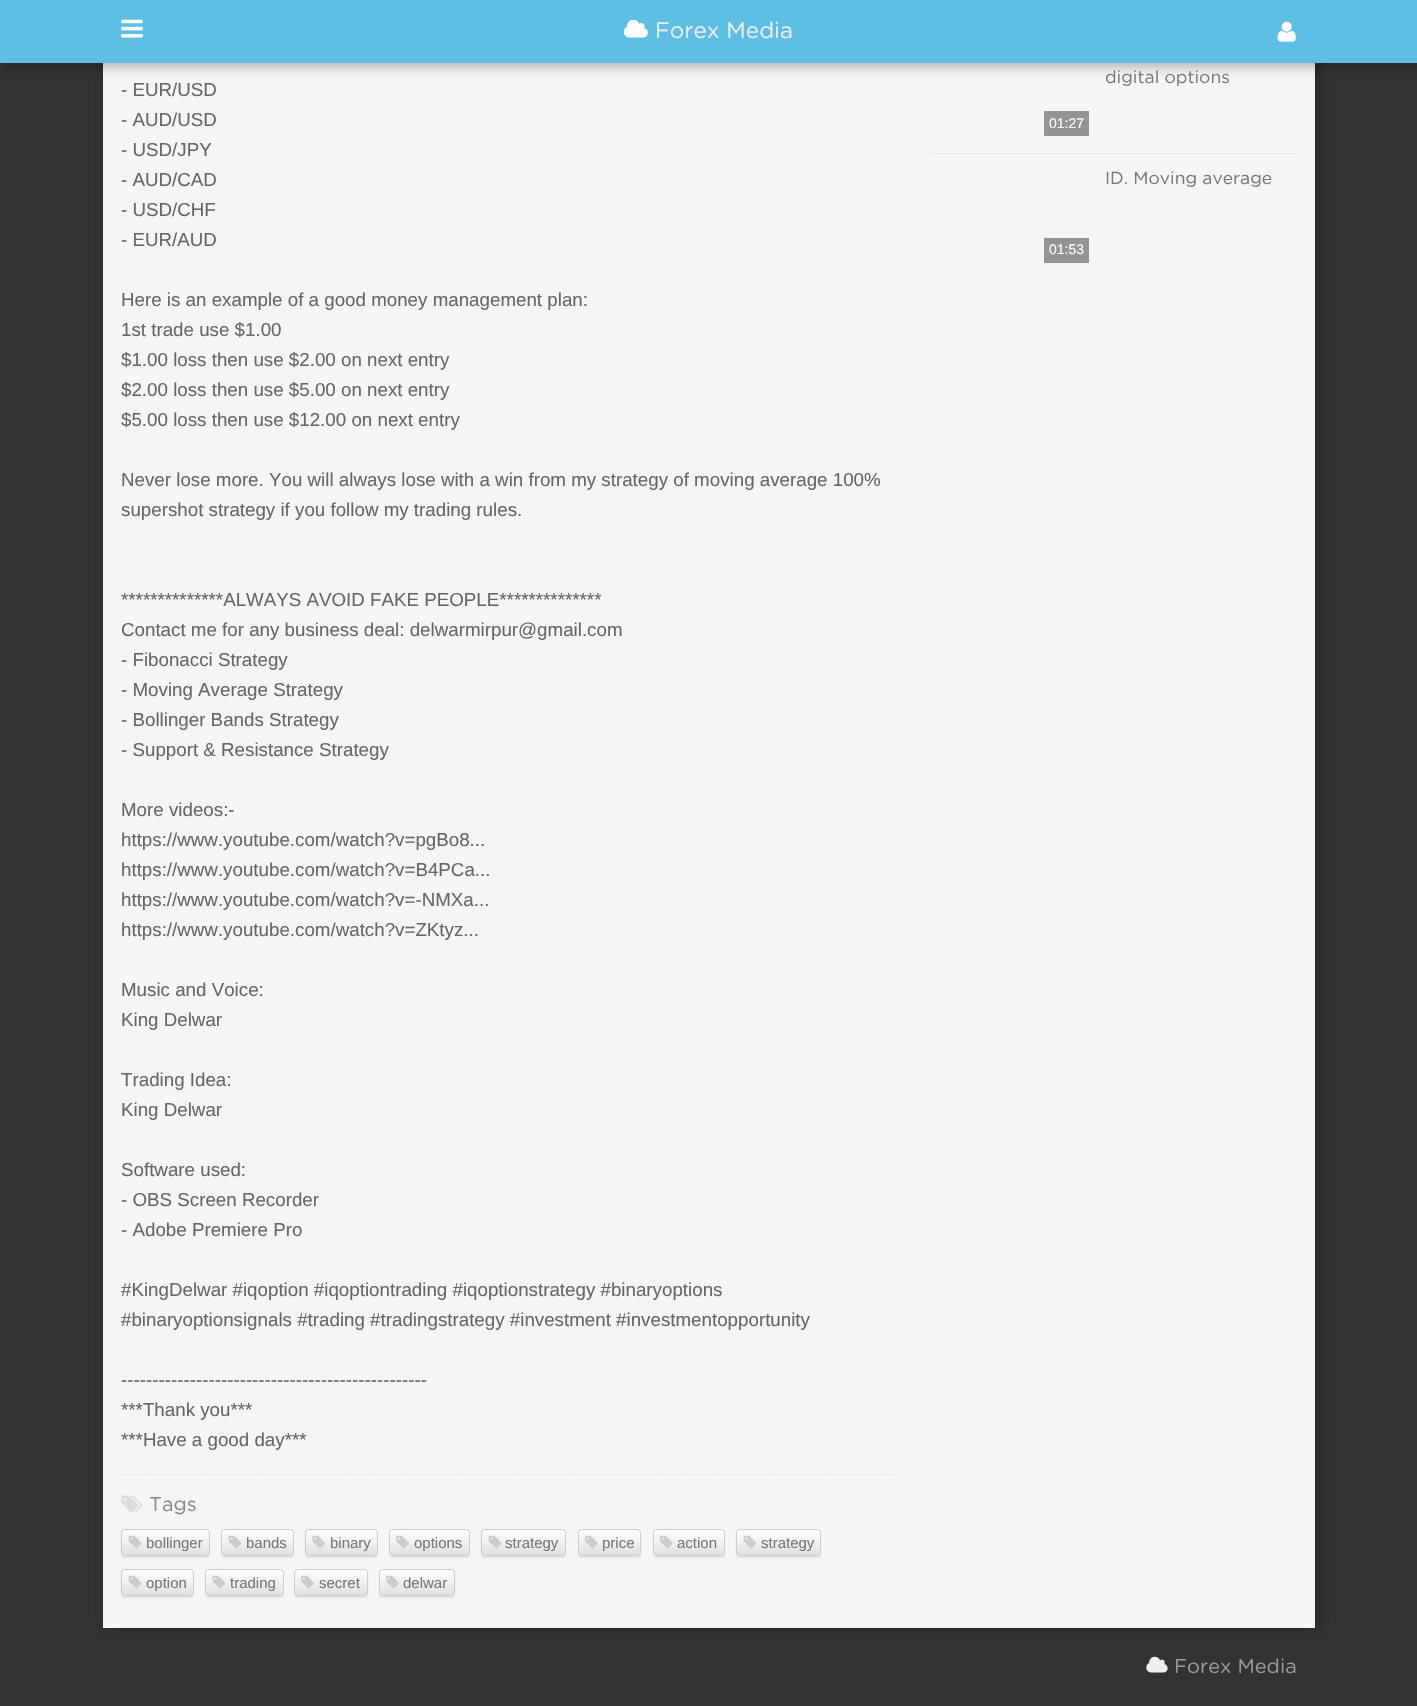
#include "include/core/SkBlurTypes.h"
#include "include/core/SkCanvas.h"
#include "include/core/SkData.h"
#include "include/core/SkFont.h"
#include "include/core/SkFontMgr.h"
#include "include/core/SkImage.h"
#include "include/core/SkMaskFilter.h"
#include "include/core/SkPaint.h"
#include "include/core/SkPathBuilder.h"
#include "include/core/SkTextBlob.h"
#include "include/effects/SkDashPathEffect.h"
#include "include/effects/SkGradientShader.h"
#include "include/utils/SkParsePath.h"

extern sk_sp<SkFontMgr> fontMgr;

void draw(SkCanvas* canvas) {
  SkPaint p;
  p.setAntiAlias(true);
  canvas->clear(SkColorSetRGB(51, 51, 51));
  p.setColor(SkColorSetARGB(77, 0, 0, 0));
  p.setMaskFilter(SkMaskFilter::MakeBlur(kNormal_SkBlurStyle, 6));
  canvas->drawRect(SkRect::MakeLTRB(106, -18, 1319, 1628), p);
  p.setMaskFilter(nullptr);
  p.setColor(SkColorSetRGB(245, 245, 245));
  canvas->drawRect(SkRect::MakeLTRB(103, 63, 1315, 1628), p);
  p.setColor(SkColorSetARGB(77, 0, 0, 0));
  p.setMaskFilter(SkMaskFilter::MakeBlur(kNormal_SkBlurStyle, 6));
  canvas->drawRect(SkRect::MakeLTRB(4, 4, 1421, 66), p);
  p.setMaskFilter(nullptr);
  p.setColor(SkColorSetRGB(93, 191, 228));
  canvas->drawRect(SkRect::MakeLTRB(0, 0, 1417, 63), p);
  canvas->drawImageRect(SkImages::DeferredFromEncodedData(SkData::MakeFromFileName("images/1.png")), SkRect::MakeLTRB(121, 19, 143, 38), SkSamplingOptions());
  canvas->drawImageRect(SkImages::DeferredFromEncodedData(SkData::MakeFromFileName("images/2.png")), SkRect::MakeLTRB(623, 19, 648, 38), SkSamplingOptions());
  canvas->drawImageRect(SkImages::DeferredFromEncodedData(SkData::MakeFromFileName("images/3.png")), SkRect::MakeLTRB(1277, 21, 1296, 42), SkSamplingOptions());
  p.setStyle(SkPaint::kStroke_Style);
  p.setStrokeWidth(1.2f);
  p.setColor(SkColorSetRGB(229, 229, 229));
  p.setPathEffect(SkDashPathEffect::Make({{3.75f, 2.49f}}, 0));
  canvas->drawPath(SkPathBuilder().moveTo(121, 1474.5f).lineTo(892.5f, 1474.5f).detach(), p);
  p.setPathEffect(nullptr);
  canvas->drawImageRect(SkImages::DeferredFromEncodedData(SkData::MakeFromFileName("images/4.png")), SkRect::MakeLTRB(121, 1495, 143, 1513), SkSamplingOptions());
  p.setStyle(SkPaint::kFill_Style);
  p.setColor(SkColorSetARGB(18, 0, 0, 0));
  p.setMaskFilter(SkMaskFilter::MakeBlur(kNormal_SkBlurStyle, 0.5f));
  canvas->drawRoundRect(SkRect::MakeLTRB(121, 1530, 210, 1558), 4, 4, p);
  p.setMaskFilter(nullptr);
  canvas->save();
  canvas->clipPath(SkPathBuilder().moveTo(125, 1529).lineTo(206, 1529).cubicTo(208, 1529, 210, 1531, 210, 1533).lineTo(210, 1552).cubicTo(210, 1554, 208, 1556, 206, 1556).lineTo(125, 1556).cubicTo(123, 1556, 121, 1554, 121, 1552).lineTo(121, 1533).cubicTo(121, 1531, 123, 1529, 125, 1529).close().detach(), true);
  {
    const SkColor colors[] = {SK_ColorWHITE, SkColorSetRGB(224, 224, 224)};
    const float stops[] = {0, 1};
    const SkPoint ends[] = {{166, 1530}, {166, 1555}};
    p.setShader(SkGradientShader::MakeLinear(ends, colors, stops, 2, SkTileMode::kClamp));
    p.setAlpha(255);
  }
  canvas->drawRect(SkRect::MakeLTRB(121, 1530, 210, 1555), p);
  canvas->restore();
  p.setStyle(SkPaint::kStroke_Style);
  p.setStrokeWidth(1);
  p.setShader(nullptr);
  p.setColor(SkColorSetRGB(204, 204, 204));
  canvas->drawRoundRect(SkRect::MakeLTRB(121.5f, 1529.5f, 209.5f, 1555.5f), 3.5f, 3.5f, p);
  canvas->drawImageRect(SkImages::DeferredFromEncodedData(SkData::MakeFromFileName("images/5.png")), SkRect::MakeLTRB(128, 1535, 142, 1549), SkSamplingOptions());
  p.setStyle(SkPaint::kFill_Style);
  p.setColor(SkColorSetARGB(18, 0, 0, 0));
  p.setMaskFilter(SkMaskFilter::MakeBlur(kNormal_SkBlurStyle, 0.5f));
  canvas->drawRoundRect(SkRect::MakeLTRB(221, 1530, 294, 1558), 4, 4, p);
  p.setMaskFilter(nullptr);
  canvas->save();
  canvas->clipPath(SkPathBuilder().moveTo(225, 1529).lineTo(290, 1529).cubicTo(292, 1529, 294, 1531, 294, 1533).lineTo(294, 1552).cubicTo(294, 1554, 292, 1556, 290, 1556).lineTo(225, 1556).cubicTo(223, 1556, 221, 1554, 221, 1552).lineTo(221, 1533).cubicTo(221, 1531, 223, 1529, 225, 1529).close().detach(), true);
  {
    const SkColor colors[] = {SK_ColorWHITE, SkColorSetRGB(224, 224, 224)};
    const float stops[] = {0, 1};
    const SkPoint ends[] = {{258, 1530}, {258, 1555}};
    p.setShader(SkGradientShader::MakeLinear(ends, colors, stops, 2, SkTileMode::kClamp));
    p.setAlpha(255);
  }
  canvas->drawRect(SkRect::MakeLTRB(221, 1530, 294, 1555), p);
  canvas->restore();
  p.setShader(nullptr);
  p.setColor(SkColorSetARGB(38, 255, 255, 255));
  canvas->drawPath(SkPathBuilder().moveTo(225, 1531).lineTo(279, 1531).cubicTo(293, 1531, 292, 1528, 292, 1541).lineTo(292, 1555).cubicTo(293, 1554, 293, 1553, 293, 1552).lineTo(293, 1532).cubicTo(293, 1531, 292, 1530, 290, 1530).lineTo(226, 1530).cubicTo(224, 1530, 223, 1531, 223, 1532).close().detach(), p);
  p.setStyle(SkPaint::kStroke_Style);
  p.setColor(SkColorSetRGB(204, 204, 204));
  canvas->drawRoundRect(SkRect::MakeLTRB(221.5f, 1529.5f, 293.5f, 1555.5f), 3.5f, 3.5f, p);
  canvas->drawImageRect(SkImages::DeferredFromEncodedData(SkData::MakeFromFileName("images/5.png")), SkRect::MakeLTRB(228, 1535, 242, 1549), SkSamplingOptions());
  p.setStyle(SkPaint::kFill_Style);
  p.setColor(SkColorSetARGB(18, 0, 0, 0));
  p.setMaskFilter(SkMaskFilter::MakeBlur(kNormal_SkBlurStyle, 0.5f));
  canvas->drawRoundRect(SkRect::MakeLTRB(305, 1530, 378, 1558), 4, 4, p);
  p.setMaskFilter(nullptr);
  canvas->save();
  canvas->clipPath(SkPathBuilder().moveTo(309, 1529).lineTo(374, 1529).cubicTo(376, 1529, 378, 1531, 378, 1533).lineTo(378, 1552).cubicTo(378, 1554, 376, 1556, 374, 1556).lineTo(309, 1556).cubicTo(307, 1556, 305, 1554, 305, 1552).lineTo(305, 1533).cubicTo(305, 1531, 307, 1529, 309, 1529).close().detach(), true);
  {
    const SkColor colors[] = {SK_ColorWHITE, SkColorSetRGB(224, 224, 224)};
    const float stops[] = {0, 1};
    const SkPoint ends[] = {{341, 1530}, {341, 1555}};
    p.setShader(SkGradientShader::MakeLinear(ends, colors, stops, 2, SkTileMode::kClamp));
    p.setAlpha(255);
  }
  canvas->drawRect(SkRect::MakeLTRB(305, 1530, 378, 1555), p);
  canvas->restore();
  p.setStyle(SkPaint::kStroke_Style);
  p.setShader(nullptr);
  p.setColor(SkColorSetRGB(204, 204, 204));
  canvas->drawRoundRect(SkRect::MakeLTRB(305.5f, 1529.5f, 377.5f, 1555.5f), 3.5f, 3.5f, p);
  canvas->drawImageRect(SkImages::DeferredFromEncodedData(SkData::MakeFromFileName("images/6.png")), SkRect::MakeLTRB(312, 1535, 325, 1549), SkSamplingOptions());
  p.setStyle(SkPaint::kFill_Style);
  p.setColor(SkColorSetARGB(18, 0, 0, 0));
  p.setMaskFilter(SkMaskFilter::MakeBlur(kNormal_SkBlurStyle, 0.5f));
  canvas->drawRoundRect(SkRect::MakeLTRB(389, 1530, 470, 1558), 4, 4, p);
  p.setMaskFilter(nullptr);
  canvas->save();
  canvas->clipPath(SkPathBuilder().moveTo(393, 1529).lineTo(466, 1529).cubicTo(468, 1529, 470, 1531, 470, 1533).lineTo(470, 1552).cubicTo(470, 1554, 468, 1556, 466, 1556).lineTo(393, 1556).cubicTo(391, 1556, 389, 1554, 389, 1552).lineTo(389, 1533).cubicTo(389, 1531, 391, 1529, 393, 1529).close().detach(), true);
  {
    const SkColor colors[] = {SK_ColorWHITE, SkColorSetRGB(224, 224, 224)};
    const float stops[] = {0, 1};
    const SkPoint ends[] = {{429, 1530}, {429, 1555}};
    p.setShader(SkGradientShader::MakeLinear(ends, colors, stops, 2, SkTileMode::kClamp));
    p.setAlpha(255);
  }
  canvas->drawRect(SkRect::MakeLTRB(389, 1530, 470, 1555), p);
  canvas->restore();
  p.setStyle(SkPaint::kStroke_Style);
  p.setShader(nullptr);
  p.setColor(SkColorSetRGB(204, 204, 204));
  canvas->drawRoundRect(SkRect::MakeLTRB(389.5f, 1529.5f, 469.5f, 1555.5f), 3.5f, 3.5f, p);
  canvas->drawImageRect(SkImages::DeferredFromEncodedData(SkData::MakeFromFileName("images/7.png")), SkRect::MakeLTRB(396, 1535, 409, 1549), SkSamplingOptions());
  p.setStyle(SkPaint::kFill_Style);
  p.setColor(SkColorSetARGB(18, 0, 0, 0));
  p.setMaskFilter(SkMaskFilter::MakeBlur(kNormal_SkBlurStyle, 0.5f));
  canvas->drawRoundRect(SkRect::MakeLTRB(481, 1530, 566, 1558), 4, 4, p);
  p.setMaskFilter(nullptr);
  canvas->save();
  canvas->clipPath(SkPathBuilder().moveTo(485, 1529).lineTo(562, 1529).cubicTo(564, 1529, 566, 1531, 566, 1533).lineTo(566, 1552).cubicTo(566, 1554, 564, 1556, 562, 1556).lineTo(485, 1556).cubicTo(483, 1556, 481, 1554, 481, 1552).lineTo(481, 1533).cubicTo(481, 1531, 483, 1529, 485, 1529).close().detach(), true);
  {
    const SkColor colors[] = {SK_ColorWHITE, SkColorSetRGB(224, 224, 224)};
    const float stops[] = {0, 1};
    const SkPoint ends[] = {{524, 1530}, {524, 1555}};
    p.setShader(SkGradientShader::MakeLinear(ends, colors, stops, 2, SkTileMode::kClamp));
    p.setAlpha(255);
  }
  canvas->drawRect(SkRect::MakeLTRB(481, 1530, 566, 1555), p);
  canvas->restore();
  p.setStyle(SkPaint::kStroke_Style);
  p.setShader(nullptr);
  p.setColor(SkColorSetRGB(204, 204, 204));
  canvas->drawRoundRect(SkRect::MakeLTRB(481.5f, 1529.5f, 565.5f, 1555.5f), 3.5f, 3.5f, p);
  canvas->drawImageRect(SkImages::DeferredFromEncodedData(SkData::MakeFromFileName("images/5.png")), SkRect::MakeLTRB(488, 1535, 502, 1549), SkSamplingOptions());
  p.setStyle(SkPaint::kFill_Style);
  p.setColor(SkColorSetARGB(18, 0, 0, 0));
  p.setMaskFilter(SkMaskFilter::MakeBlur(kNormal_SkBlurStyle, 0.5f));
  canvas->drawRoundRect(SkRect::MakeLTRB(578, 1530, 641, 1558), 4, 4, p);
  p.setMaskFilter(nullptr);
  canvas->save();
  canvas->clipPath(SkPathBuilder().moveTo(582, 1529).lineTo(637, 1529).cubicTo(639, 1529, 641, 1531, 641, 1533).lineTo(641, 1552).cubicTo(641, 1554, 639, 1556, 637, 1556).lineTo(582, 1556).cubicTo(580, 1556, 578, 1554, 578, 1552).lineTo(578, 1533).cubicTo(578, 1531, 580, 1529, 582, 1529).close().detach(), true);
  {
    const SkColor colors[] = {SK_ColorWHITE, SkColorSetRGB(224, 224, 224)};
    const float stops[] = {0, 1};
    const SkPoint ends[] = {{609, 1530}, {609, 1555}};
    p.setShader(SkGradientShader::MakeLinear(ends, colors, stops, 2, SkTileMode::kClamp));
    p.setAlpha(255);
  }
  canvas->drawRect(SkRect::MakeLTRB(578, 1530, 641, 1555), p);
  canvas->restore();
  p.setStyle(SkPaint::kStroke_Style);
  p.setShader(nullptr);
  p.setColor(SkColorSetRGB(204, 204, 204));
  canvas->drawRoundRect(SkRect::MakeLTRB(578.5f, 1529.5f, 640.5f, 1555.5f), 3.5f, 3.5f, p);
  canvas->drawImageRect(SkImages::DeferredFromEncodedData(SkData::MakeFromFileName("images/8.png")), SkRect::MakeLTRB(585, 1535, 598, 1549), SkSamplingOptions());
  p.setStyle(SkPaint::kFill_Style);
  p.setColor(SkColorSetARGB(18, 0, 0, 0));
  p.setMaskFilter(SkMaskFilter::MakeBlur(kNormal_SkBlurStyle, 0.5f));
  canvas->drawRoundRect(SkRect::MakeLTRB(653, 1530, 725, 1558), 4, 4, p);
  p.setMaskFilter(nullptr);
  canvas->save();
  canvas->clipPath(SkPathBuilder().moveTo(657, 1529).lineTo(721, 1529).cubicTo(723, 1529, 725, 1531, 725, 1533).lineTo(725, 1552).cubicTo(725, 1554, 723, 1556, 721, 1556).lineTo(657, 1556).cubicTo(655, 1556, 653, 1554, 653, 1552).lineTo(653, 1533).cubicTo(653, 1531, 655, 1529, 657, 1529).close().detach(), true);
  {
    const SkColor colors[] = {SK_ColorWHITE, SkColorSetRGB(224, 224, 224)};
    const float stops[] = {0, 1};
    const SkPoint ends[] = {{689, 1530}, {689, 1555}};
    p.setShader(SkGradientShader::MakeLinear(ends, colors, stops, 2, SkTileMode::kClamp));
    p.setAlpha(255);
  }
  canvas->drawRect(SkRect::MakeLTRB(653, 1530, 725, 1555), p);
  canvas->restore();
  p.setStyle(SkPaint::kStroke_Style);
  p.setShader(nullptr);
  p.setColor(SkColorSetRGB(204, 204, 204));
  canvas->drawRoundRect(SkRect::MakeLTRB(653.5f, 1529.5f, 724.5f, 1555.5f), 3.5f, 3.5f, p);
  canvas->drawImageRect(SkImages::DeferredFromEncodedData(SkData::MakeFromFileName("images/8.png")), SkRect::MakeLTRB(660, 1535, 673, 1549), SkSamplingOptions());
  p.setStyle(SkPaint::kFill_Style);
  p.setColor(SkColorSetARGB(18, 0, 0, 0));
  p.setMaskFilter(SkMaskFilter::MakeBlur(kNormal_SkBlurStyle, 0.5f));
  canvas->drawRoundRect(SkRect::MakeLTRB(736, 1530, 821, 1558), 4, 4, p);
  p.setMaskFilter(nullptr);
  canvas->save();
  canvas->clipPath(SkPathBuilder().moveTo(740, 1529).lineTo(817, 1529).cubicTo(819, 1529, 821, 1531, 821, 1533).lineTo(821, 1552).cubicTo(821, 1554, 819, 1556, 817, 1556).lineTo(740, 1556).cubicTo(738, 1556, 736, 1554, 736, 1552).lineTo(736, 1533).cubicTo(736, 1531, 738, 1529, 740, 1529).close().detach(), true);
  {
    const SkColor colors[] = {SK_ColorWHITE, SkColorSetRGB(224, 224, 224)};
    const float stops[] = {0, 1};
    const SkPoint ends[] = {{779, 1530}, {779, 1555}};
    p.setShader(SkGradientShader::MakeLinear(ends, colors, stops, 2, SkTileMode::kClamp));
    p.setAlpha(255);
  }
  canvas->drawRect(SkRect::MakeLTRB(736, 1530, 821, 1555), p);
  canvas->restore();
  p.setStyle(SkPaint::kStroke_Style);
  p.setShader(nullptr);
  p.setColor(SkColorSetRGB(204, 204, 204));
  canvas->drawRoundRect(SkRect::MakeLTRB(736.5f, 1529.5f, 820.5f, 1555.5f), 3.5f, 3.5f, p);
  canvas->drawImageRect(SkImages::DeferredFromEncodedData(SkData::MakeFromFileName("images/5.png")), SkRect::MakeLTRB(743, 1535, 757, 1549), SkSamplingOptions());
  p.setStyle(SkPaint::kFill_Style);
  p.setColor(SkColorSetARGB(18, 0, 0, 0));
  p.setMaskFilter(SkMaskFilter::MakeBlur(kNormal_SkBlurStyle, 0.5f));
  canvas->drawRoundRect(SkRect::MakeLTRB(121, 1570, 194, 1598), 4, 4, p);
  p.setMaskFilter(nullptr);
  canvas->save();
  canvas->clipPath(SkPathBuilder().moveTo(125, 1569).lineTo(190, 1569).cubicTo(192, 1569, 194, 1571, 194, 1573).lineTo(194, 1592).cubicTo(194, 1594, 192, 1596, 190, 1596).lineTo(125, 1596).cubicTo(123, 1596, 121, 1594, 121, 1592).lineTo(121, 1573).cubicTo(121, 1571, 123, 1569, 125, 1569).close().detach(), true);
  {
    const SkColor colors[] = {SK_ColorWHITE, SkColorSetRGB(224, 224, 224)};
    const float stops[] = {0, 1};
    const SkPoint ends[] = {{158, 1570}, {158, 1595}};
    p.setShader(SkGradientShader::MakeLinear(ends, colors, stops, 2, SkTileMode::kClamp));
    p.setAlpha(255);
  }
  canvas->drawRect(SkRect::MakeLTRB(121, 1570, 194, 1595), p);
  canvas->restore();
  p.setShader(nullptr);
  p.setColor(SkColorSetARGB(38, 255, 255, 255));
  canvas->drawPath(SkPathBuilder().moveTo(125, 1571).lineTo(179, 1571).cubicTo(193, 1571, 192, 1568, 192, 1581).lineTo(192, 1595).cubicTo(193, 1594, 193, 1593, 193, 1592).lineTo(193, 1572).cubicTo(193, 1571, 192, 1570, 190, 1570).lineTo(126, 1570).cubicTo(124, 1570, 123, 1571, 123, 1572).close().detach(), p);
  p.setStyle(SkPaint::kStroke_Style);
  p.setColor(SkColorSetRGB(204, 204, 204));
  canvas->drawRoundRect(SkRect::MakeLTRB(121.5f, 1569.5f, 193.5f, 1595.5f), 3.5f, 3.5f, p);
  canvas->drawImageRect(SkImages::DeferredFromEncodedData(SkData::MakeFromFileName("images/5.png")), SkRect::MakeLTRB(128, 1575, 142, 1589), SkSamplingOptions());
  p.setStyle(SkPaint::kFill_Style);
  p.setColor(SkColorSetARGB(18, 0, 0, 0));
  p.setMaskFilter(SkMaskFilter::MakeBlur(kNormal_SkBlurStyle, 0.5f));
  canvas->drawRoundRect(SkRect::MakeLTRB(205, 1570, 284, 1598), 4, 4, p);
  p.setMaskFilter(nullptr);
  canvas->save();
  canvas->clipPath(SkPathBuilder().moveTo(209, 1569).lineTo(280, 1569).cubicTo(282, 1569, 284, 1571, 284, 1573).lineTo(284, 1592).cubicTo(284, 1594, 282, 1596, 280, 1596).lineTo(209, 1596).cubicTo(207, 1596, 205, 1594, 205, 1592).lineTo(205, 1573).cubicTo(205, 1571, 207, 1569, 209, 1569).close().detach(), true);
  {
    const SkColor colors[] = {SK_ColorWHITE, SkColorSetRGB(224, 224, 224)};
    const float stops[] = {0, 1};
    const SkPoint ends[] = {{244, 1570}, {244, 1595}};
    p.setShader(SkGradientShader::MakeLinear(ends, colors, stops, 2, SkTileMode::kClamp));
    p.setAlpha(255);
  }
  canvas->drawRect(SkRect::MakeLTRB(205, 1570, 284, 1595), p);
  canvas->restore();
  p.setShader(nullptr);
  p.setColor(SkColorSetARGB(38, 255, 255, 255));
  canvas->drawPath(SkPathBuilder().moveTo(209, 1571).lineTo(268, 1571).cubicTo(283, 1571, 282, 1568, 282, 1581).lineTo(282, 1595).cubicTo(284, 1593, 283, 1585, 283, 1582).cubicTo(283, 1567, 285, 1570, 268, 1570).lineTo(220, 1570).cubicTo(215, 1570, 206, 1567, 206, 1574).cubicTo(206, 1572, 207, 1571, 209, 1571).close().detach(), p);
  p.setStyle(SkPaint::kStroke_Style);
  p.setColor(SkColorSetRGB(204, 204, 204));
  canvas->drawRoundRect(SkRect::MakeLTRB(205.5f, 1569.5f, 283.5f, 1595.5f), 3.5f, 3.5f, p);
  canvas->drawImageRect(SkImages::DeferredFromEncodedData(SkData::MakeFromFileName("images/6.png")), SkRect::MakeLTRB(212, 1575, 225, 1589), SkSamplingOptions());
  p.setStyle(SkPaint::kFill_Style);
  p.setColor(SkColorSetARGB(18, 0, 0, 0));
  p.setMaskFilter(SkMaskFilter::MakeBlur(kNormal_SkBlurStyle, 0.5f));
  canvas->drawRoundRect(SkRect::MakeLTRB(294, 1570, 368, 1598), 4, 4, p);
  p.setMaskFilter(nullptr);
  canvas->save();
  canvas->clipPath(SkPathBuilder().moveTo(298, 1569).lineTo(364, 1569).cubicTo(366, 1569, 368, 1571, 368, 1573).lineTo(368, 1592).cubicTo(368, 1594, 366, 1596, 364, 1596).lineTo(298, 1596).cubicTo(296, 1596, 294, 1594, 294, 1592).lineTo(294, 1573).cubicTo(294, 1571, 296, 1569, 298, 1569).close().detach(), true);
  {
    const SkColor colors[] = {SK_ColorWHITE, SkColorSetRGB(224, 224, 224)};
    const float stops[] = {0, 1};
    const SkPoint ends[] = {{331, 1570}, {331, 1595}};
    p.setShader(SkGradientShader::MakeLinear(ends, colors, stops, 2, SkTileMode::kClamp));
    p.setAlpha(255);
  }
  canvas->drawRect(SkRect::MakeLTRB(294, 1570, 368, 1595), p);
  canvas->restore();
  p.setStyle(SkPaint::kStroke_Style);
  p.setShader(nullptr);
  p.setColor(SkColorSetRGB(204, 204, 204));
  canvas->drawRoundRect(SkRect::MakeLTRB(294.5f, 1569.5f, 367.5f, 1595.5f), 3.5f, 3.5f, p);
  canvas->drawImageRect(SkImages::DeferredFromEncodedData(SkData::MakeFromFileName("images/7.png")), SkRect::MakeLTRB(301, 1575, 314, 1589), SkSamplingOptions());
  p.setStyle(SkPaint::kFill_Style);
  p.setColor(SkColorSetARGB(18, 0, 0, 0));
  p.setMaskFilter(SkMaskFilter::MakeBlur(kNormal_SkBlurStyle, 0.5f));
  canvas->drawRoundRect(SkRect::MakeLTRB(379, 1570, 455, 1598), 4, 4, p);
  p.setMaskFilter(nullptr);
  canvas->save();
  canvas->clipPath(SkPathBuilder().moveTo(383, 1569).lineTo(451, 1569).cubicTo(453, 1569, 455, 1571, 455, 1573).lineTo(455, 1592).cubicTo(455, 1594, 453, 1596, 451, 1596).lineTo(383, 1596).cubicTo(381, 1596, 379, 1594, 379, 1592).lineTo(379, 1573).cubicTo(379, 1571, 381, 1569, 383, 1569).close().detach(), true);
  {
    const SkColor colors[] = {SK_ColorWHITE, SkColorSetRGB(224, 224, 224)};
    const float stops[] = {0, 1};
    const SkPoint ends[] = {{417, 1570}, {417, 1595}};
    p.setShader(SkGradientShader::MakeLinear(ends, colors, stops, 2, SkTileMode::kClamp));
    p.setAlpha(255);
  }
  canvas->drawRect(SkRect::MakeLTRB(379, 1570, 455, 1595), p);
  canvas->restore();
  p.setStyle(SkPaint::kStroke_Style);
  p.setShader(nullptr);
  p.setColor(SkColorSetRGB(204, 204, 204));
  canvas->drawRoundRect(SkRect::MakeLTRB(379.5f, 1569.5f, 454.5f, 1595.5f), 3.5f, 3.5f, p);
  canvas->drawImageRect(SkImages::DeferredFromEncodedData(SkData::MakeFromFileName("images/7.png")), SkRect::MakeLTRB(386, 1575, 399, 1589), SkSamplingOptions());
  p.setStyle(SkPaint::kFill_Style);
  p.setColor(SkColorSetRGB(147, 147, 147));
  canvas->drawRect(SkRect::MakeLTRB(1044, 111, 1089, 136), p);
  p.setColor(SkColorSetRGB(229, 229, 229));
  canvas->drawRect(SkRect::MakeLTRB(930, 153, 1296, 154), p);
  p.setColor(SkColorSetRGB(147, 147, 147));
  canvas->drawRect(SkRect::MakeLTRB(1044, 238, 1089, 263), p);
  canvas->drawImageRect(SkImages::DeferredFromEncodedData(SkData::MakeFromFileName("images/9.png")), SkRect::MakeLTRB(1146, 1656, 1168, 1673), SkSamplingOptions());
  SkFont font1(fontMgr->matchFamilyStyle("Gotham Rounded", SkFontStyle::Normal()), 22.5f);
  font1.setSubpixel(true);
  p.setColor(SkColorSetRGB(238, 238, 238));
  canvas->drawString("Forex Media", 655, 38, font1, p);
  SkFont font2(fontMgr->matchFamilyStyle("Liberation Sans", SkFontStyle::Normal()), 18.75f);
  font2.setSubpixel(true);
  p.setColor(SkColorSetRGB(102, 102, 102));
  canvas->drawString("- EUR/USD", 121, 96, font2, p);
  canvas->drawString("- AUD/USD", 121, 126, font2, p);
  canvas->drawString("- USD/JPY", 121, 156, font2, p);
  canvas->drawString("- AUD/CAD", 121, 186, font2, p);
  canvas->drawString("- USD/CHF", 121, 216, font2, p);
  canvas->drawString("- EUR/AUD", 121, 246, font2, p);
  canvas->drawString("Here is an example of a good money management plan:", 121, 306, font2, p);
  canvas->drawString("1st trade use $1.00", 121, 336, font2, p);
  canvas->drawString("$1.00 loss then use $2.00 on next entry", 121, 366, font2, p);
  canvas->drawString("$2.00 loss then use $5.00 on next entry", 121, 396, font2, p);
  canvas->drawString("$5.00 loss then use $12.00 on next entry", 121, 426, font2, p);
  canvas->drawString("Never lose more. You will always lose with a win from my strategy of moving average 100%", 121, 486, font2, p);
  canvas->drawString("supershot strategy if you follow my trading rules.", 121, 516, font2, p);
  canvas->drawString("**************ALWAYS AVOID FAKE PEOPLE**************", 121, 606, font2, p);
  canvas->drawString("Contact me for any business deal: delwarmirpur@gmail.com", 121, 636, font2, p);
  canvas->drawString("- Fibonacci Strategy", 121, 666, font2, p);
  canvas->drawString("- Moving Average Strategy", 121, 696, font2, p);
  canvas->drawString("- Bollinger Bands Strategy", 121, 726, font2, p);
  canvas->drawString("- Support & Resistance Strategy", 121, 756, font2, p);
  canvas->drawString("More videos:-", 121, 816, font2, p);
  canvas->drawString("https://www.youtube.com/watch?v=pgBo8...", 121, 846, font2, p);
  canvas->drawString("https://www.youtube.com/watch?v=B4PCa...", 121, 876, font2, p);
  canvas->drawString("https://www.youtube.com/watch?v=-NMXa...", 121, 906, font2, p);
  canvas->drawString("https://www.youtube.com/watch?v=ZKtyz...", 121, 936, font2, p);
  canvas->drawString("Music and Voice:", 121, 996, font2, p);
  canvas->drawString("King Delwar", 121, 1026, font2, p);
  canvas->drawString("Trading Idea:", 121, 1086, font2, p);
  canvas->drawString("King Delwar", 121, 1116, font2, p);
  canvas->drawString("Software used:", 121, 1176, font2, p);
  canvas->drawString("- OBS Screen Recorder", 121, 1206, font2, p);
  canvas->drawString("- Adobe Premiere Pro", 121, 1236, font2, p);
  canvas->drawString("#KingDelwar #iqoption #iqoptiontrading #iqoptionstrategy #binaryoptions", 121, 1296, font2, p);
  canvas->drawString("#binaryoptionsignals #trading #tradingstrategy #investment #investmentopportunity", 121, 1326, font2, p);
  canvas->drawString("-------------------------------------------------", 121, 1386, font2, p);
  canvas->drawString("***Thank you***", 121, 1416, font2, p);
  canvas->drawString("***Have a good day***", 121, 1446, font2, p);
  SkFont font3(fontMgr->matchFamilyStyle("Gotham Rounded", SkFontStyle::Normal()), 20);
  font3.setSubpixel(true);
  p.setColor(SkColorSetRGB(136, 136, 136));
  canvas->drawString("Tags", 149, 1511, font3, p);
  SkFont font4(fontMgr->matchFamilyStyle("Liberation Sans", SkFontStyle::Normal()), 15);
  font4.setSubpixel(true);
  p.setColor(SkColorSetRGB(119, 119, 119));
  canvas->drawString("bollinger", 146, 1548, font4, p);
  canvas->drawString("bands", 246, 1548, font4, p);
  canvas->drawString("binary", 330, 1548, font4, p);
  canvas->drawString("options", 414, 1548, font4, p);
  canvas->drawString("strategy", 505, 1548, font4, p);
  canvas->drawString("price", 602, 1548, font4, p);
  canvas->drawString("action", 677, 1548, font4, p);
  canvas->drawString("strategy", 761, 1548, font4, p);
  canvas->drawString("option", 146, 1588, font4, p);
  canvas->drawString("trading", 230, 1588, font4, p);
  canvas->drawString("secret", 319, 1588, font4, p);
  canvas->drawString("delwar", 403, 1588, font4, p);
  SkFont font5(fontMgr->matchFamilyStyle("Gotham Rounded", SkFontStyle::Normal()), 17.5f);
  font5.setSubpixel(true);
  canvas->drawString("digital options", 1105, 83, font5, p);
  SkFont font6(fontMgr->matchFamilyStyle("Liberation Sans", SkFontStyle::Normal()), 14);
  font6.setSubpixel(true);
  p.setColor(SK_ColorWHITE);
  canvas->drawString("01:27", 1049, 128, font6, p);
  p.setColor(SkColorSetRGB(119, 119, 119));
  canvas->drawString("ID. Moving average", 1105, 184, font5, p);
  p.setColor(SK_ColorWHITE);
  canvas->drawString("01:53", 1049, 254, font6, p);
  p.setColor(SkColorSetRGB(153, 153, 153));
  canvas->drawString("Forex Media", 1174, 1673, font3, p);
}
